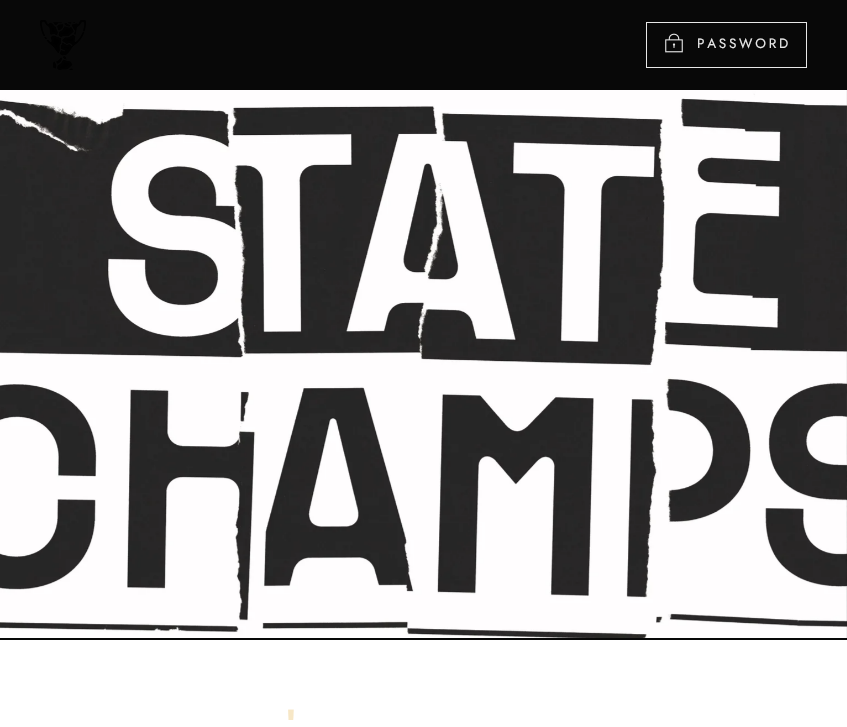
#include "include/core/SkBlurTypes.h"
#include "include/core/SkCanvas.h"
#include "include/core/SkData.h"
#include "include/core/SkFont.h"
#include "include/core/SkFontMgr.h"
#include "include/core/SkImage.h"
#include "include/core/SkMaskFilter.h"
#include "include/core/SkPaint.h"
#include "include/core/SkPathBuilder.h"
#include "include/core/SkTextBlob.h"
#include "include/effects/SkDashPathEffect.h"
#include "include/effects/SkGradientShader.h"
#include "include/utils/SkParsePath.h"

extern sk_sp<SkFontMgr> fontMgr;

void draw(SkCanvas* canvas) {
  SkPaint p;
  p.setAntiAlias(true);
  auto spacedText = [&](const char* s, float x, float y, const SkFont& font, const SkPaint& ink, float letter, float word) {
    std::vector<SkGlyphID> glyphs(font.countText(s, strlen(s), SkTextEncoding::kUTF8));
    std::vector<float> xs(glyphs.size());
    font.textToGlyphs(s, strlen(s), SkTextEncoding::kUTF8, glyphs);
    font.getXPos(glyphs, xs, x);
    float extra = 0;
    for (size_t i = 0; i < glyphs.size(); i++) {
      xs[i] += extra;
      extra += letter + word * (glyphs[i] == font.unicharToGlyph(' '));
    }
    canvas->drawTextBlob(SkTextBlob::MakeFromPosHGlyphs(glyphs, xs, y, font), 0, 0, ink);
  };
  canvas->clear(SK_ColorWHITE);
  p.setColor(SkColorSetRGB(8, 8, 8));
  canvas->drawRect(SkRect::MakeLTRB(0, 0, 847, 90), p);
  canvas->drawImageRect(SkImages::DeferredFromEncodedData(SkData::MakeFromFileName("images/1.png")), SkRect::MakeLTRB(40, 20, 86, 70), SkSamplingOptions());
  p.setStyle(SkPaint::kStroke_Style);
  p.setStrokeWidth(1);
  p.setColor(SkColorSetRGB(231, 231, 231));
  canvas->drawRect(SkRect::MakeLTRB(646.5f, 22.5f, 806.5f, 67.5f), p);
  canvas->drawImageRect(SkImages::DeferredFromEncodedData(SkData::MakeFromFileName("images/2.png")), SkRect::MakeLTRB(665, 33, 683, 53), SkSamplingOptions());
  canvas->drawImageRect(SkImages::DeferredFromEncodedData(SkData::MakeFromFileName("images/4.png")), SkRect::MakeLTRB(846, 90, 847, 638), SkSamplingOptions());
  canvas->drawImageRect(SkImages::DeferredFromEncodedData(SkData::MakeFromFileName("images/3.png")), SkRect::MakeLTRB(0, 90, 847, 638), SkSamplingOptions());
  p.setStyle(SkPaint::kFill_Style);
  p.setColor(SkColorSetRGB(8, 8, 8));
  canvas->drawRect(SkRect::MakeLTRB(0, 638, 847, 640), p);
  SkFont font1(fontMgr->matchFamilyStyle("Jost", SkFontStyle::Normal()), 13.5f);
  font1.setSubpixel(true);
  p.setColor(SkColorSetRGB(231, 231, 231));
  spacedText("PASSWORD", 697, 48, font1, p, 2.75f, 0);
  SkFont font2(fontMgr->matchFamilyStyle("Liberation Sans", SkFontStyle::Bold()), 41);
  font2.setSubpixel(true);
  p.setColor(SkColorSetRGB(247, 231, 198));
  canvas->drawString("'", 286, 738, font2, p);
}
